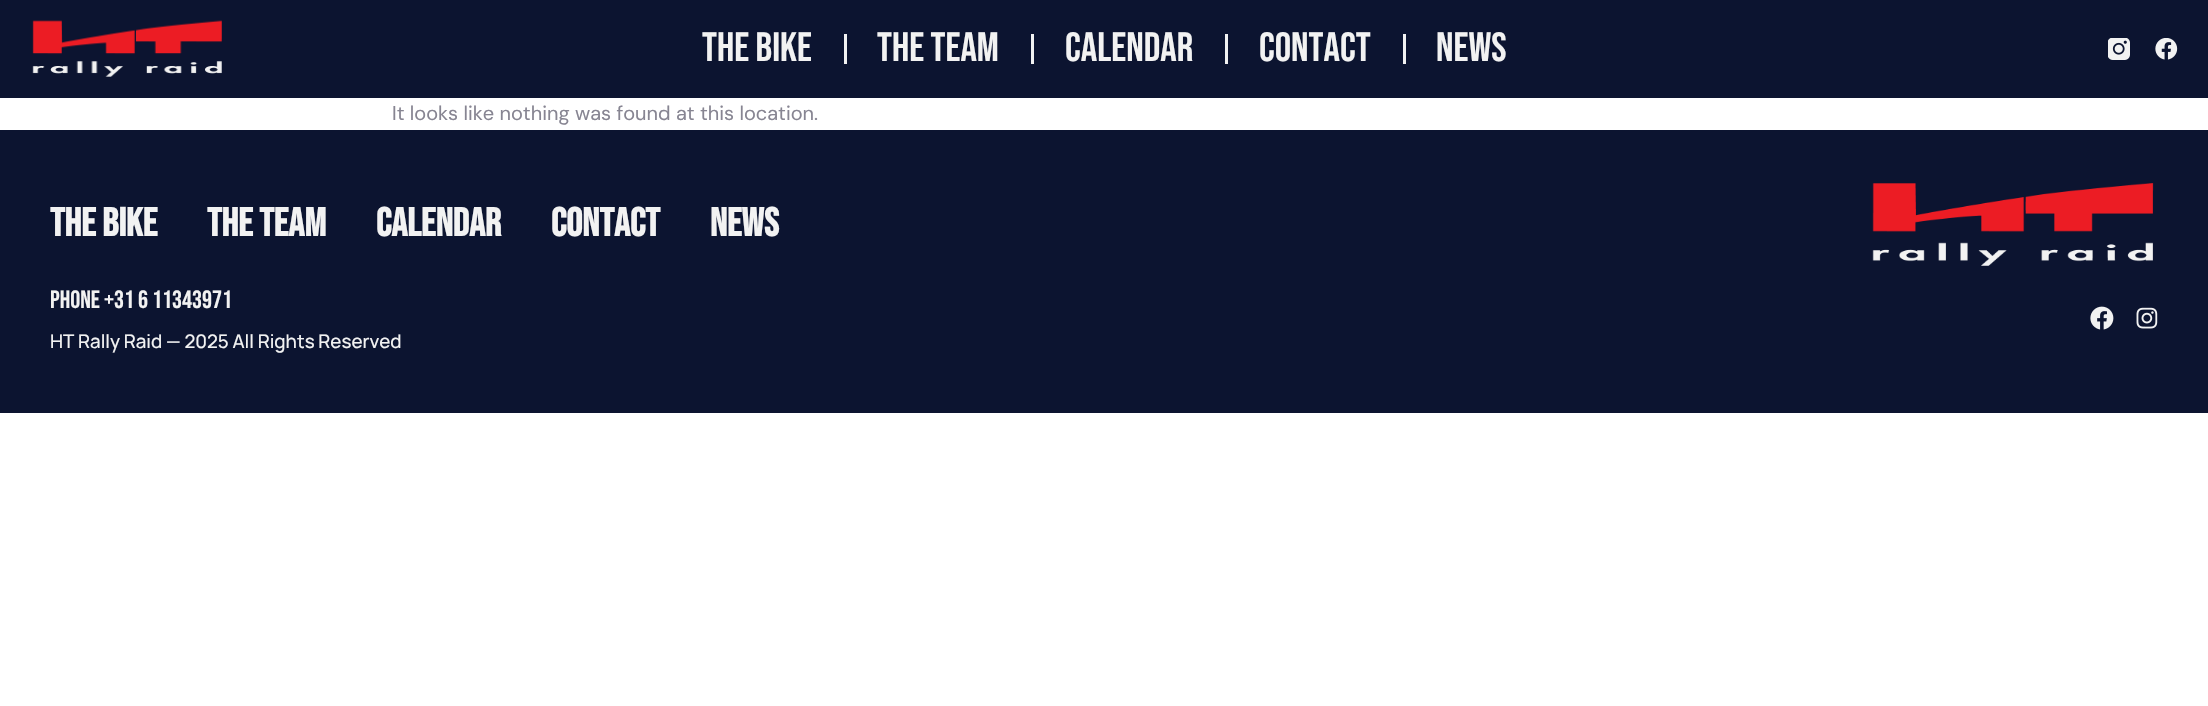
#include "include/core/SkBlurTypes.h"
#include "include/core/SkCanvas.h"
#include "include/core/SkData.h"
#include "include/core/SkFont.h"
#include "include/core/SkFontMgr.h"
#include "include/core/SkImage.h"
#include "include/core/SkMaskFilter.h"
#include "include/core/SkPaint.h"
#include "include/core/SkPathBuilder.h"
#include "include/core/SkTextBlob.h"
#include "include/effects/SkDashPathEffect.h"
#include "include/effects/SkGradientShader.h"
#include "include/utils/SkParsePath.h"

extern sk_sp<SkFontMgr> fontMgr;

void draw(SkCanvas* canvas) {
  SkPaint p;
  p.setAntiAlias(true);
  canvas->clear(SK_ColorWHITE);
  p.setColor(SkColorSetRGB(12, 20, 48));
  canvas->drawRect(SkRect::MakeLTRB(0, 0, 2208, 98), p);
  canvas->drawImageRect(SkImages::DeferredFromEncodedData(SkData::MakeFromFileName("images/1.png")), SkRect::MakeLTRB(32, 20, 222, 77), SkSamplingOptions());
  p.setColor(SkColorSetRGB(242, 242, 242));
  canvas->drawRect(SkRect::MakeLTRB(844, 34, 847, 64), p);
  canvas->drawRect(SkRect::MakeLTRB(1031, 34, 1034, 64), p);
  canvas->drawRect(SkRect::MakeLTRB(1225, 34, 1228, 64), p);
  canvas->drawRect(SkRect::MakeLTRB(1403, 34, 1406, 64), p);
  canvas->drawImageRect(SkImages::DeferredFromEncodedData(SkData::MakeFromFileName("images/2.png")), SkRect::MakeLTRB(2108, 38, 2130, 60), SkSamplingOptions());
  canvas->drawImageRect(SkImages::DeferredFromEncodedData(SkData::MakeFromFileName("images/3.png")), SkRect::MakeLTRB(2155, 38, 2178, 60), SkSamplingOptions());
  p.setColor(SkColorSetRGB(12, 20, 48));
  canvas->drawRect(SkRect::MakeLTRB(0, 130, 2208, 413), p);
  canvas->drawImageRect(SkImages::DeferredFromEncodedData(SkData::MakeFromFileName("images/4.png")), SkRect::MakeLTRB(1872, 183, 2154, 266), SkSamplingOptions());
  canvas->drawImageRect(SkImages::DeferredFromEncodedData(SkData::MakeFromFileName("images/5.png")), SkRect::MakeLTRB(2090, 306, 2114, 330), SkSamplingOptions());
  canvas->drawImageRect(SkImages::DeferredFromEncodedData(SkData::MakeFromFileName("images/6.png")), SkRect::MakeLTRB(2136, 307, 2158, 329), SkSamplingOptions());
  SkFont font1(fontMgr->matchFamilyStyle("Bebas Neue", SkFontStyle::Normal()), 41);
  font1.setSubpixel(true);
  p.setColor(SkColorSetRGB(242, 242, 242));
  canvas->drawString("THE BIKE", 702, 61, font1, p);
  canvas->drawString("THE TEAM", 877, 61, font1, p);
  canvas->drawString("CALENDAR", 1065, 61, font1, p);
  canvas->drawString("CONTACT", 1259, 61, font1, p);
  canvas->drawString("NEWS", 1436, 61, font1, p);
  SkFont font2(fontMgr->matchFamilyStyle("DM Sans", SkFontStyle::Normal()), 20);
  font2.setSubpixel(true);
  p.setColor(SkColorSetRGB(135, 133, 146));
  canvas->drawString("It looks like nothing was found at this location.", 392, 120, font2, p);
  SkFont font3(fontMgr->matchFamilyStyle("Bebas Neue", SkFontStyle::Bold()), 40);
  font3.setSubpixel(true);
  p.setColor(SkColorSetRGB(242, 242, 242));
  canvas->drawString("THE BIKE", 50, 236, font3, p);
  canvas->drawString("THE TEAM", 207, 236, font3, p);
  canvas->drawString("CALENDAR", 376, 236, font3, p);
  canvas->drawString("CONTACT", 551, 236, font3, p);
  canvas->drawString("NEWS", 710, 236, font3, p);
  SkFont font4(fontMgr->matchFamilyStyle("Bebas Neue", SkFontStyle::Normal()), 25);
  font4.setSubpixel(true);
  canvas->drawString("PHONE +31 6 11343971", 50, 308, font4, p);
  SkFont font5(fontMgr->matchFamilyStyle("Manrope", SkFontStyle(500, SkFontStyle::kNormal_Width, SkFontStyle::kUpright_Slant)), 18.75f);
  font5.setSubpixel(true);
  canvas->drawString("HT Rally Raid — 2025 All Rights Reserved", 50, 348, font5, p);
}
